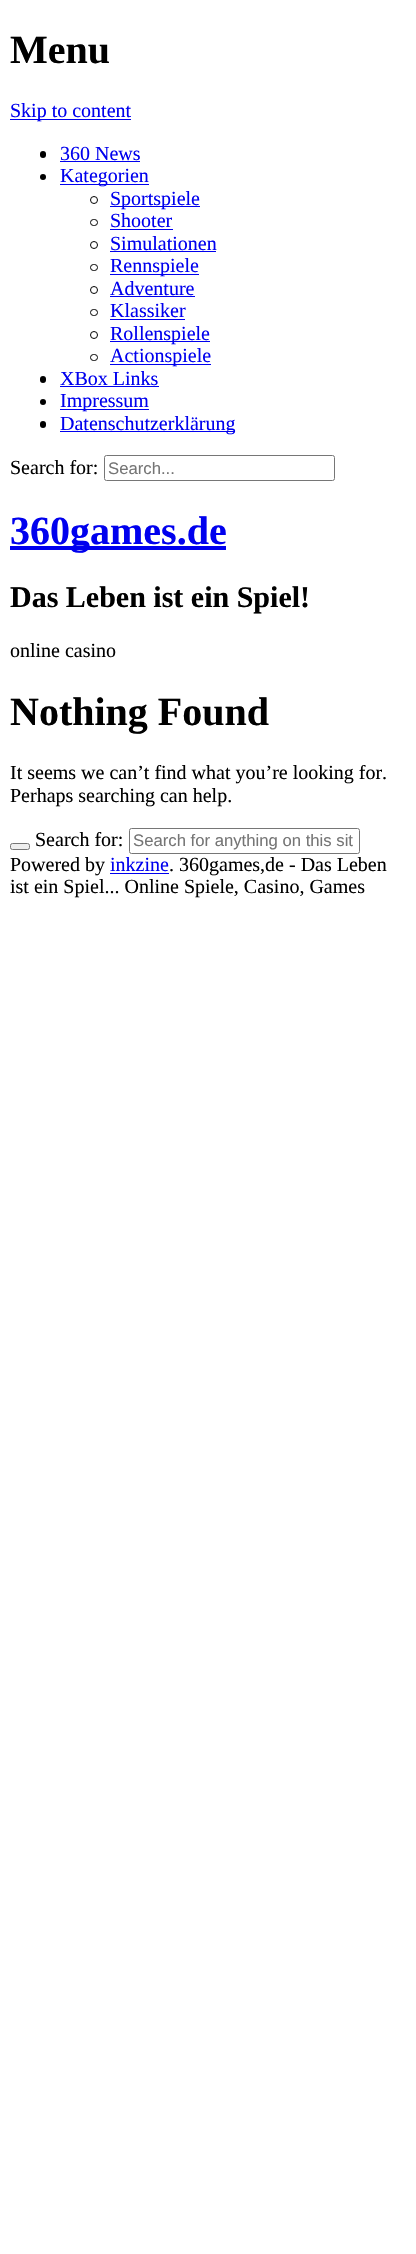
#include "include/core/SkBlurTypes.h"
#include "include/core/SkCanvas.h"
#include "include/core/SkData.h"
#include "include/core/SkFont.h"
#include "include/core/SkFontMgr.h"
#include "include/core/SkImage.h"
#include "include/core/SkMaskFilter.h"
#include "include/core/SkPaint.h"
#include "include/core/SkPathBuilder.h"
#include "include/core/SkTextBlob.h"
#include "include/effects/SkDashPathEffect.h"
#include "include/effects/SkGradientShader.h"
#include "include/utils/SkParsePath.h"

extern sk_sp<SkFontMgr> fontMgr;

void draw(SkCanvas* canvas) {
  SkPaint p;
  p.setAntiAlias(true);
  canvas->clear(SK_ColorWHITE);
  p.setColor(SkColorSetRGB(0, 0, 238));
  canvas->drawRect(SkRect::MakeLTRB(10, 119, 131, 120), p);
  p.setColor(SK_ColorBLACK);
  canvas->drawRoundRect(SkRect::MakeLTRB(40, 151, 46, 158), 3, 3, p);
  p.setColor(SkColorSetRGB(0, 0, 238));
  canvas->drawRect(SkRect::MakeLTRB(60, 161, 140, 162), p);
  p.setColor(SK_ColorBLACK);
  canvas->drawCircle(43, 177, 3, p);
  p.setColor(SkColorSetRGB(0, 0, 238));
  canvas->drawRect(SkRect::MakeLTRB(60, 184, 149, 185), p);
  p.setStyle(SkPaint::kStroke_Style);
  p.setStrokeWidth(1);
  p.setColor(SK_ColorBLACK);
  canvas->drawCircle(94, 200, 3.5f, p);
  p.setStyle(SkPaint::kFill_Style);
  p.setColor(SkColorSetRGB(0, 0, 238));
  canvas->drawRect(SkRect::MakeLTRB(110, 206, 200, 207), p);
  p.setStyle(SkPaint::kStroke_Style);
  p.setColor(SK_ColorBLACK);
  canvas->drawRoundRect(SkRect::MakeLTRB(90.5f, 219.5f, 97.5f, 225.5f), 3, 3, p);
  p.setStyle(SkPaint::kFill_Style);
  p.setColor(SkColorSetRGB(0, 0, 238));
  canvas->drawRect(SkRect::MakeLTRB(110, 229, 173, 230), p);
  p.setStyle(SkPaint::kStroke_Style);
  p.setColor(SK_ColorBLACK);
  canvas->drawCircle(94, 245, 3.5f, p);
  p.setStyle(SkPaint::kFill_Style);
  p.setColor(SkColorSetRGB(0, 0, 238));
  canvas->drawRect(SkRect::MakeLTRB(110, 251, 216, 252), p);
  p.setStyle(SkPaint::kStroke_Style);
  p.setColor(SK_ColorBLACK);
  canvas->drawRoundRect(SkRect::MakeLTRB(90.5f, 264.5f, 97.5f, 270.5f), 3, 3, p);
  p.setStyle(SkPaint::kFill_Style);
  p.setColor(SkColorSetRGB(0, 0, 238));
  canvas->drawRect(SkRect::MakeLTRB(110, 274, 199, 275), p);
  p.setStyle(SkPaint::kStroke_Style);
  p.setColor(SK_ColorBLACK);
  canvas->drawCircle(94, 290, 3.5f, p);
  p.setStyle(SkPaint::kFill_Style);
  p.setColor(SkColorSetRGB(0, 0, 238));
  canvas->drawRect(SkRect::MakeLTRB(110, 296, 195, 297), p);
  p.setStyle(SkPaint::kStroke_Style);
  p.setColor(SK_ColorBLACK);
  canvas->drawRoundRect(SkRect::MakeLTRB(90.5f, 309.5f, 97.5f, 315.5f), 3, 3, p);
  p.setStyle(SkPaint::kFill_Style);
  p.setColor(SkColorSetRGB(0, 0, 238));
  canvas->drawRect(SkRect::MakeLTRB(110, 319, 185, 320), p);
  p.setStyle(SkPaint::kStroke_Style);
  p.setColor(SK_ColorBLACK);
  canvas->drawCircle(94, 335, 3.5f, p);
  p.setStyle(SkPaint::kFill_Style);
  p.setColor(SkColorSetRGB(0, 0, 238));
  canvas->drawRect(SkRect::MakeLTRB(110, 341, 210, 342), p);
  p.setStyle(SkPaint::kStroke_Style);
  p.setColor(SK_ColorBLACK);
  canvas->drawRoundRect(SkRect::MakeLTRB(90.5f, 354.5f, 97.5f, 360.5f), 3, 3, p);
  p.setStyle(SkPaint::kFill_Style);
  p.setColor(SkColorSetRGB(0, 0, 238));
  canvas->drawRect(SkRect::MakeLTRB(110, 364, 211, 365), p);
  p.setColor(SK_ColorBLACK);
  canvas->drawRoundRect(SkRect::MakeLTRB(40, 376, 46, 383), 3, 3, p);
  p.setColor(SkColorSetRGB(0, 0, 238));
  canvas->drawRect(SkRect::MakeLTRB(60, 386, 159, 387), p);
  p.setColor(SK_ColorBLACK);
  canvas->drawCircle(43, 402, 3, p);
  p.setColor(SkColorSetRGB(0, 0, 238));
  canvas->drawRect(SkRect::MakeLTRB(60, 409, 149, 410), p);
  p.setColor(SK_ColorBLACK);
  canvas->drawRoundRect(SkRect::MakeLTRB(40, 421, 46, 428), 3, 3, p);
  p.setColor(SkColorSetRGB(0, 0, 238));
  canvas->drawRect(SkRect::MakeLTRB(60, 431, 235, 432), p);
  p.setStyle(SkPaint::kStroke_Style);
  p.setColor(SkColorSetRGB(118, 118, 118));
  canvas->drawRoundRect(SkRect::MakeLTRB(104.5f, 455.5f, 334.5f, 480.5f), 2, 2, p);
  p.setStyle(SkPaint::kFill_Style);
  p.setColor(SkColorSetRGB(0, 0, 238));
  canvas->drawRect(SkRect::MakeLTRB(10, 546, 226, 550), p);
  p.setColor(SkColorSetRGB(239, 239, 239));
  canvas->drawRoundRect(SkRect::MakeLTRB(10.5f, 843.5f, 29.5f, 849.5f), 2, 2, p);
  p.setStyle(SkPaint::kStroke_Style);
  p.setColor(SkColorSetRGB(118, 118, 118));
  canvas->drawRoundRect(SkRect::MakeLTRB(10.5f, 843.5f, 29.5f, 849.5f), 2, 2, p);
  canvas->drawRoundRect(SkRect::MakeLTRB(129.5f, 828.5f, 359.5f, 853.5f), 2, 2, p);
  p.setStyle(SkPaint::kFill_Style);
  p.setColor(SkColorSetRGB(0, 0, 238));
  canvas->drawRect(SkRect::MakeLTRB(110, 873, 169, 874), p);
  SkFont font1(fontMgr->matchFamilyStyle("Liberation Serif", SkFontStyle::Bold()), 40);
  font1.setSubpixel(true);
  p.setColor(SK_ColorBLACK);
  canvas->drawString("Menu", 10, 63, font1, p);
  SkFont font2(fontMgr->matchFamilyStyle("Liberation Serif", SkFontStyle::Normal()), 20);
  font2.setSubpixel(true);
  p.setColor(SkColorSetRGB(0, 0, 238));
  canvas->drawString("Skip to content", 10, 117, font2, p);
  canvas->drawString("360 News", 60, 160, font2, p);
  canvas->drawString("Kategorien", 60, 182, font2, p);
  canvas->drawString("Sportspiele", 110, 205, font2, p);
  canvas->drawString("Shooter", 110, 227, font2, p);
  canvas->drawString("Simulationen", 110, 250, font2, p);
  canvas->drawString("Rennspiele", 110, 272, font2, p);
  canvas->drawString("Adventure", 110, 295, font2, p);
  canvas->drawString("Klassiker", 110, 317, font2, p);
  canvas->drawString("Rollenspiele", 110, 340, font2, p);
  canvas->drawString("Actionspiele", 110, 362, font2, p);
  canvas->drawString("XBox Links", 60, 385, font2, p);
  canvas->drawString("Impressum", 60, 407, font2, p);
  canvas->drawString("Datenschutzerklärung", 60, 430, font2, p);
  p.setColor(SK_ColorBLACK);
  canvas->drawString("Search for:", 10, 474, font2, p);
  SkFont font3(fontMgr->matchFamilyStyle("Liberation Sans", SkFontStyle::Normal()), 16.7f);
  font3.setSubpixel(true);
  p.setColor(SkColorSetRGB(117, 117, 117));
  canvas->drawString("Search...", 108, 474, font3, p);
  p.setColor(SkColorSetRGB(0, 0, 238));
  canvas->drawString("360games.de", 10, 544, font1, p);
  SkFont font4(fontMgr->matchFamilyStyle("Liberation Serif", SkFontStyle::Bold()), 30);
  font4.setSubpixel(true);
  p.setColor(SK_ColorBLACK);
  canvas->drawString("Das Leben ist ein Spiel!", 10, 607, font4, p);
  canvas->drawString("online casino", 10, 657, font2, p);
  canvas->drawString("Nothing Found", 10, 725, font1, p);
  canvas->drawString("It seems we can’t find what you’re looking for.", 10, 779, font2, p);
  canvas->drawString("Perhaps searching can help.", 10, 802, font2, p);
  canvas->drawString("Search for:", 35, 846, font2, p);
  p.setColor(SkColorSetRGB(117, 117, 117));
  canvas->drawString("Search for anything on this sit", 133, 846, font3, p);
  p.setColor(SK_ColorBLACK);
  canvas->drawString("Powered by", 10, 871, font2, p);
  p.setColor(SkColorSetRGB(0, 0, 238));
  canvas->drawString("inkzine", 110, 871, font2, p);
  p.setColor(SK_ColorBLACK);
  canvas->drawString(". 360games,de - Das Leben", 169, 871, font2, p);
  canvas->drawString("ist ein Spiel... Online Spiele, Casino, Games", 10, 893, font2, p);
}
